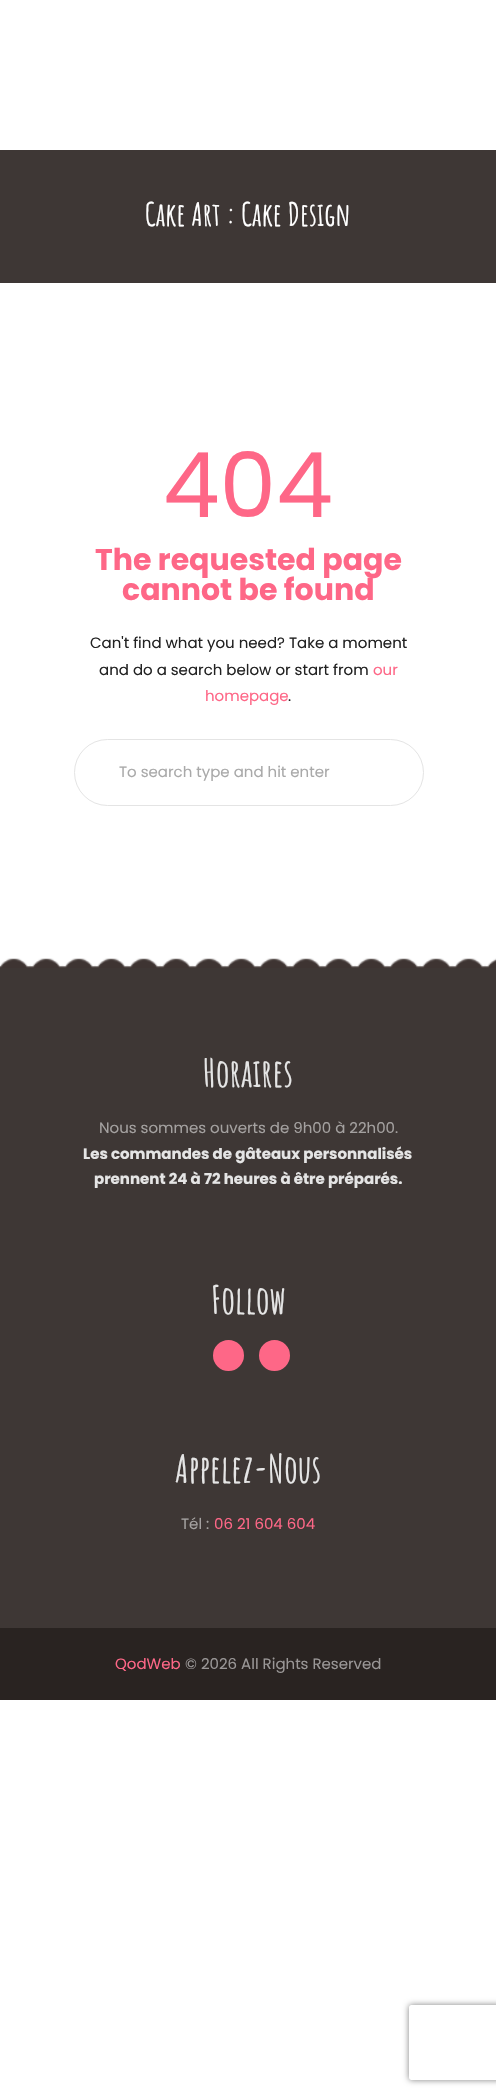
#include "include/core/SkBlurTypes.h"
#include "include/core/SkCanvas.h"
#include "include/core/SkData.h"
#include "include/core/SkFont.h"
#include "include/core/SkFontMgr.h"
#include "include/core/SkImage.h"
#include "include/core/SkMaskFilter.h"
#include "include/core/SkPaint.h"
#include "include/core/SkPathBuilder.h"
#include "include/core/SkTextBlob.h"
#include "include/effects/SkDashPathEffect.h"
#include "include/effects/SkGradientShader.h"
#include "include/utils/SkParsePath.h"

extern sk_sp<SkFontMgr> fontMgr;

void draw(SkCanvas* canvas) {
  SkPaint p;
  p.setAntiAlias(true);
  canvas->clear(SK_ColorWHITE);
  p.setColor(SkColorSetRGB(62, 55, 53));
  canvas->drawRect(SkRect::MakeLTRB(0, 150, 496, 283), p);
  p.setStyle(SkPaint::kStroke_Style);
  p.setStrokeWidth(1);
  p.setColor(SkColorSetRGB(228, 228, 228));
  canvas->drawRoundRect(SkRect::MakeLTRB(74.5f, 739.5f, 423.5f, 805.5f), 33, 33, p);
  p.setStyle(SkPaint::kFill_Style);
  p.setColor(SkColorSetRGB(62, 55, 53));
  canvas->drawRect(SkRect::MakeLTRB(0, 968, 496, 1628), p);
  canvas->drawImageRect(SkImages::DeferredFromEncodedData(SkData::MakeFromFileName("images/1.png")), SkRect::MakeLTRB(0, 958, 496, 968), SkSamplingOptions());
  p.setColor(SkColorSetRGB(254, 103, 135));
  canvas->drawCircle(228.5f, 1355.5f, 14, p);
  p.setStyle(SkPaint::kStroke_Style);
  p.setStrokeWidth(3);
  canvas->drawCircle(228.5f, 1355.5f, 14, p);
  p.setStyle(SkPaint::kFill_Style);
  canvas->drawCircle(274.5f, 1355.5f, 14, p);
  p.setStyle(SkPaint::kStroke_Style);
  canvas->drawCircle(274.5f, 1355.5f, 14, p);
  p.setStyle(SkPaint::kFill_Style);
  p.setColor(SkColorSetRGB(41, 35, 33));
  canvas->drawRect(SkRect::MakeLTRB(0, 1628, 496, 1700), p);
  canvas->save();
  canvas->clipPath(SkPathBuilder(SkPathFillType::kEvenOdd).moveTo(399, 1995).lineTo(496, 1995).lineTo(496, 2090).lineTo(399, 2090).close().moveTo(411.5f, 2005).lineTo(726.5f, 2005).cubicTo(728, 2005, 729, 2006, 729, 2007.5f).lineTo(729, 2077.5f).cubicTo(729, 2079, 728, 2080, 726.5f, 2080).lineTo(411.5f, 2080).cubicTo(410, 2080, 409, 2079, 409, 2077.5f).lineTo(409, 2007.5f).cubicTo(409, 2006, 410, 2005, 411.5f, 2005).close().detach(), true);
  p.setColor(SkColorSetRGB(128, 128, 128));
  p.setMaskFilter(SkMaskFilter::MakeBlur(kNormal_SkBlurStyle, 3));
  canvas->drawRoundRect(SkRect::MakeLTRB(409, 2005, 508, 2080), 2.5f, 2.5f, p);
  p.setMaskFilter(nullptr);
  canvas->restore();
  SkFont font1(fontMgr->matchFamilyStyle("Amatic SC", SkFontStyle::Bold()), 32);
  font1.setSubpixel(true);
  p.setColor(SK_ColorWHITE);
  canvas->drawString("Cake Art : Cake Design", 145, 226, font1, p);
  SkFont font2(fontMgr->matchFamilyStyle("Poppins", SkFontStyle::Normal()), 90);
  font2.setSubpixel(true);
  p.setColor(SkColorSetRGB(254, 103, 135));
  canvas->drawString("404", 163, 517, font2, p);
  SkFont font3(fontMgr->matchFamilyStyle("Poppins", SkFontStyle::Bold()), 30);
  font3.setSubpixel(true);
  canvas->drawString("The requested page", 95, 570, font3, p);
  canvas->drawString("cannot be found", 122, 600, font3, p);
  SkFont font4(fontMgr->matchFamilyStyle("Poppins", SkFontStyle::Normal()), 15);
  font4.setSubpixel(true);
  p.setColor(SkColorSetRGB(34, 34, 34));
  canvas->drawString("Can't find what you need? Take a moment", 90, 648, font4, p);
  canvas->drawString("and do a search below or start from", 99, 675, font4, p);
  p.setColor(SkColorSetRGB(254, 103, 135));
  canvas->drawString("our", 373, 675, font4, p);
  canvas->drawString("homepage", 205, 701, font4, p);
  p.setColor(SkColorSetRGB(34, 34, 34));
  canvas->drawString(".", 288, 701, font4, p);
  p.setColor(SkColorSetRGB(169, 169, 169));
  canvas->drawString("To search type and hit enter", 119, 777, font4, p);
  SkFont font5(fontMgr->matchFamilyStyle("Amatic SC", SkFontStyle::Bold()), 38.5f);
  font5.setSubpixel(true);
  p.setColor(SkColorSetRGB(229, 229, 229));
  canvas->drawString("Horaires", 203, 1087, font5, p);
  p.setColor(SkColorSetRGB(164, 161, 160));
  canvas->drawString("Nous sommes ouverts de 9h00 à 22h00.", 99, 1133, font4, p);
  SkFont font6(fontMgr->matchFamilyStyle("Poppins", SkFontStyle::Bold()), 15);
  font6.setSubpixel(true);
  p.setColor(SkColorSetRGB(229, 229, 229));
  canvas->drawString("Les commandes de gâteaux personnalisés", 83, 1159, font6, p);
  canvas->drawString("prennent 24 à 72 heures à être préparés.", 94, 1184, font6, p);
  canvas->drawString("Follow", 211, 1314, font5, p);
  canvas->drawString("Appelez-Nous", 175, 1483, font5, p);
  p.setColor(SkColorSetRGB(164, 161, 160));
  canvas->drawString("Tél :", 181, 1529, font4, p);
  p.setColor(SkColorSetRGB(254, 103, 135));
  canvas->drawString("06 21 604 604", 214, 1529, font4, p);
  canvas->drawString("QodWeb", 115, 1669, font4, p);
  p.setColor(SkColorSetRGB(154, 151, 151));
  canvas->drawString("© 2026 All Rights Reserved", 185, 1669, font4, p);
}
